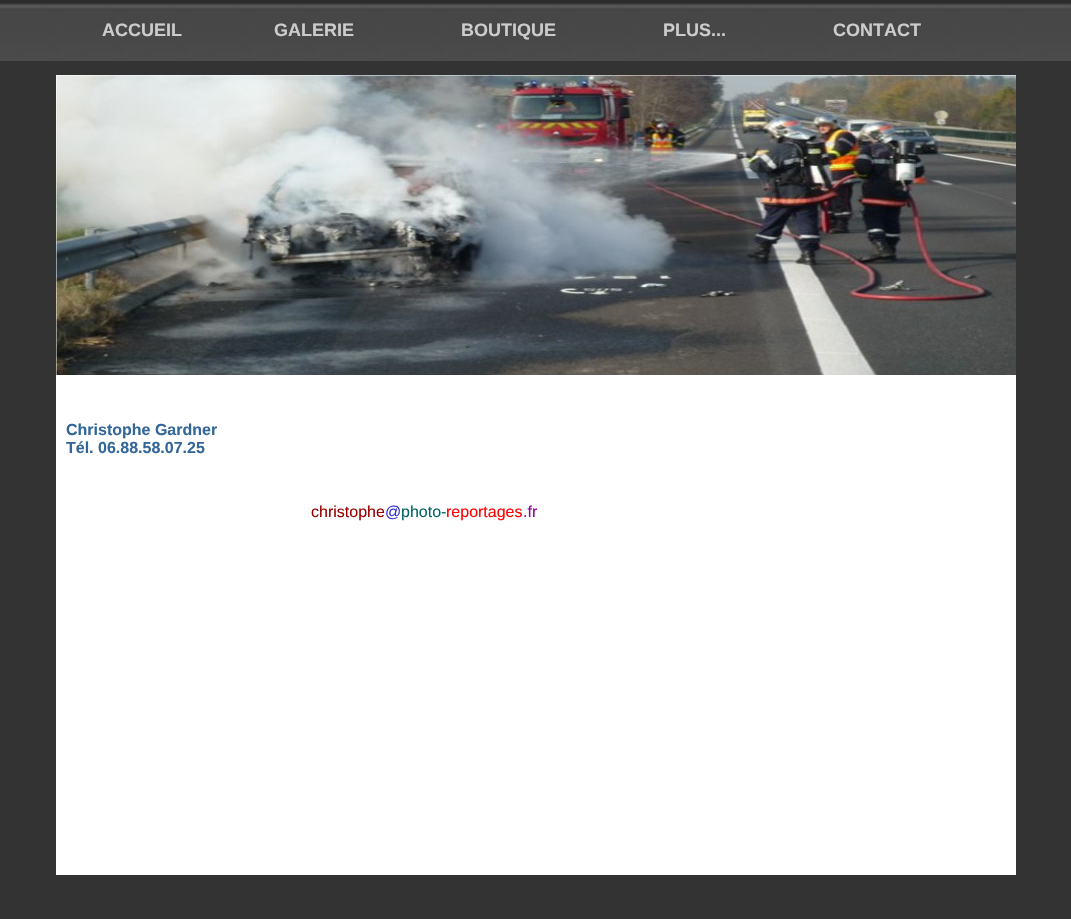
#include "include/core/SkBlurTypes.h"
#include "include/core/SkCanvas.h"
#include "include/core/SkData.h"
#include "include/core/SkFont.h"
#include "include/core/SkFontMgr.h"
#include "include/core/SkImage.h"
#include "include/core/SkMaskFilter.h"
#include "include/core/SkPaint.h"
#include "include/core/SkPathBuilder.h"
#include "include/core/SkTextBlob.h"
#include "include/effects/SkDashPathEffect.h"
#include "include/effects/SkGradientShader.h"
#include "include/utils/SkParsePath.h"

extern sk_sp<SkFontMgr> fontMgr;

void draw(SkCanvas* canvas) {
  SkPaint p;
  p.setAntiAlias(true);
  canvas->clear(SkColorSetRGB(51, 51, 51));
  canvas->drawImageRect(SkImages::DeferredFromEncodedData(SkData::MakeFromFileName("images/1.png")), SkRect::MakeLTRB(0, 0, 1071, 61), SkSamplingOptions());
  canvas->drawImageRect(SkImages::DeferredFromEncodedData(SkData::MakeFromFileName("images/2.png")), SkRect::MakeLTRB(56, 75, 1016, 375), SkSamplingOptions());
  p.setColor(SK_ColorWHITE);
  canvas->drawRect(SkRect::MakeLTRB(56, 375, 1016, 875), p);
  SkFont font1(fontMgr->matchFamilyStyle("Liberation Sans", SkFontStyle::Bold()), 18);
  font1.setSubpixel(true);
  p.setColor(SkColorSetRGB(204, 204, 204));
  canvas->drawString("ACCUEIL", 102, 36, font1, p);
  canvas->drawString("GALERIE", 274, 36, font1, p);
  canvas->drawString("BOUTIQUE", 461, 36, font1, p);
  canvas->drawString("PLUS...", 663, 36, font1, p);
  canvas->drawString("CONTACT", 833, 36, font1, p);
  SkFont font2(fontMgr->matchFamilyStyle("Liberation Sans", SkFontStyle::Bold()), 16);
  font2.setSubpixel(true);
  p.setColor(SkColorSetRGB(51, 102, 153));
  canvas->drawString("Christophe Gardner", 66, 435, font2, p);
  canvas->drawString("Tél. 06.88.58.07.25", 66, 453, font2, p);
  SkFont font3(fontMgr->matchFamilyStyle("Liberation Sans", SkFontStyle::Normal()), 16);
  font3.setSubpixel(true);
  p.setColor(SkColorSetRGB(153, 0, 0));
  canvas->drawString("christophe", 311, 517, font3, p);
  p.setColor(SkColorSetRGB(51, 51, 204));
  canvas->drawString("@", 385, 517, font3, p);
  p.setColor(SkColorSetRGB(0, 102, 102));
  canvas->drawString("photo-", 401, 517, font3, p);
  p.setColor(SkColorSetRGB(255, 0, 0));
  canvas->drawString("reportages", 446, 517, font3, p);
  p.setColor(SkColorSetRGB(153, 0, 153));
  canvas->drawString(".fr", 523, 517, font3, p);
}
